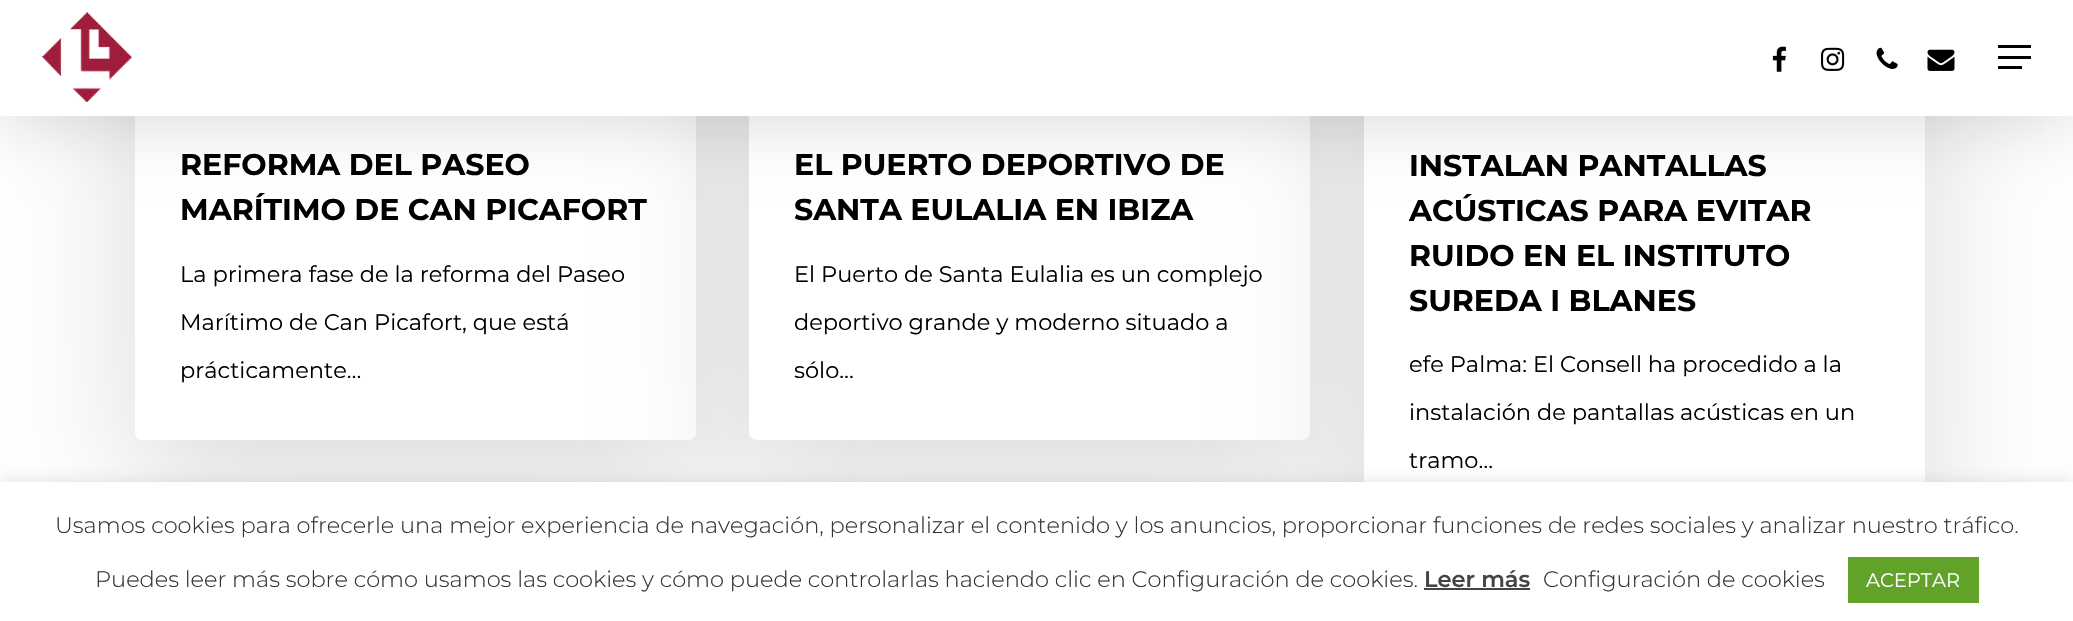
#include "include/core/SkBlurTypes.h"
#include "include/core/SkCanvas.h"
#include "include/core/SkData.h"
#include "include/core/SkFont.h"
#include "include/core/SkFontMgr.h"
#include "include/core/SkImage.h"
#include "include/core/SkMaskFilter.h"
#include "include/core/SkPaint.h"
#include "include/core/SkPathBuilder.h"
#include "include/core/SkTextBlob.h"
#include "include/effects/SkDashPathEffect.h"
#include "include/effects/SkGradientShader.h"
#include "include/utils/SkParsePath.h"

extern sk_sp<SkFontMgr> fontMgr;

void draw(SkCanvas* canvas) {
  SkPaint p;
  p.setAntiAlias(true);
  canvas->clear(SK_ColorWHITE);
  canvas->save();
  canvas->clipPath(SkPathBuilder(SkPathFillType::kEvenOdd).moveTo(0, 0).lineTo(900, 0).lineTo(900, 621).lineTo(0, 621).close().moveTo(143, -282).lineTo(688, -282).cubicTo(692.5f, -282, 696, -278.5f, 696, -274).lineTo(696, 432).cubicTo(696, 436.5f, 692.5f, 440, 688, 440).lineTo(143, 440).cubicTo(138.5f, 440, 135, 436.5f, 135, 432).lineTo(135, -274).cubicTo(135, -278.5f, 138.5f, -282, 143, -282).close().detach(), true);
  p.setColor(SkColorSetARGB(36, 0, 0, 0));
  p.setMaskFilter(SkMaskFilter::MakeBlur(kNormal_SkBlurStyle, 67.5f));
  canvas->drawRoundRect(SkRect::MakeLTRB(135, -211, 696, 485), 8, 8, p);
  p.setMaskFilter(nullptr);
  canvas->restore();
  p.setColor(SK_ColorWHITE);
  canvas->drawPath(SkPathBuilder().moveTo(135, 128).lineTo(696, 128).lineTo(696, 432).cubicTo(696, 436.5f, 692.5f, 440, 688, 440).lineTo(143, 440).cubicTo(138.5f, 440, 135, 436.5f, 135, 432).close().detach(), p);
  p.setColor(SkColorSetARGB(36, 0, 0, 0));
  p.setMaskFilter(SkMaskFilter::MakeBlur(kNormal_SkBlurStyle, 67.5f));
  canvas->drawRoundRect(SkRect::MakeLTRB(749, -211, 1310, 485), 8, 8, p);
  p.setMaskFilter(nullptr);
  p.setColor(SK_ColorWHITE);
  canvas->drawRect(SkRect::MakeLTRB(749, 116, 1310, 128), p);
  canvas->drawPath(SkPathBuilder().moveTo(749, 128).lineTo(1310, 128).lineTo(1310, 432).cubicTo(1310, 436.5f, 1306.5f, 440, 1302, 440).lineTo(757, 440).cubicTo(752.5f, 440, 749, 436.5f, 749, 432).close().detach(), p);
  p.setColor(SkColorSetARGB(36, 0, 0, 0));
  p.setMaskFilter(SkMaskFilter::MakeBlur(kNormal_SkBlurStyle, 67.5f));
  canvas->drawRoundRect(SkRect::MakeLTRB(1364, -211, 1925, 575), 8, 8, p);
  p.setMaskFilter(nullptr);
  p.setColor(SK_ColorWHITE);
  canvas->drawRect(SkRect::MakeLTRB(1364, 116, 1925, 482), p);
  p.setColor(SkColorSetARGB(38, 0, 0, 0));
  p.setMaskFilter(SkMaskFilter::MakeBlur(kNormal_SkBlurStyle, 34));
  canvas->drawRect(SkRect::MakeLTRB(0, 5, 2073, 120), p);
  p.setMaskFilter(nullptr);
  p.setColor(SK_ColorWHITE);
  canvas->drawRect(SkRect::MakeLTRB(0, 0, 2073, 116), p);
  canvas->drawImageRect(SkImages::DeferredFromEncodedData(SkData::MakeFromFileName("images/1.png")), SkRect::MakeLTRB(42, 12, 132, 102), SkSamplingOptions());
  canvas->drawImageRect(SkImages::DeferredFromEncodedData(SkData::MakeFromFileName("images/2.png")), SkRect::MakeLTRB(1772, 46, 1786, 72), SkSamplingOptions());
  canvas->drawImageRect(SkImages::DeferredFromEncodedData(SkData::MakeFromFileName("images/3.png")), SkRect::MakeLTRB(1821, 47, 1845, 71), SkSamplingOptions());
  canvas->drawImageRect(SkImages::DeferredFromEncodedData(SkData::MakeFromFileName("images/4.png")), SkRect::MakeLTRB(1876, 47, 1898, 69), SkSamplingOptions());
  canvas->drawImageRect(SkImages::DeferredFromEncodedData(SkData::MakeFromFileName("images/5.png")), SkRect::MakeLTRB(1927, 49, 1955, 71), SkSamplingOptions());
  p.setColor(SK_ColorBLACK);
  canvas->drawRect(SkRect::MakeLTRB(1998, 45, 2031, 48), p);
  canvas->drawRect(SkRect::MakeLTRB(1998, 66, 2022, 69), p);
  canvas->drawRect(SkRect::MakeLTRB(1998, 56, 2031, 59), p);
  p.setColor(SkColorSetARGB(77, 172, 171, 171));
  p.setMaskFilter(SkMaskFilter::MakeBlur(kNormal_SkBlurStyle, 7.5f));
  canvas->drawRect(SkRect::MakeLTRB(0, 480, 2073, 620), p);
  p.setMaskFilter(nullptr);
  p.setColor(SK_ColorWHITE);
  canvas->drawRect(SkRect::MakeLTRB(0, 482, 2073, 621), p);
  p.setColor(SkColorSetRGB(68, 68, 68));
  canvas->drawRect(SkRect::MakeLTRB(1424, 588, 1530, 590), p);
  p.setColor(SkColorSetRGB(97, 162, 41));
  canvas->drawRect(SkRect::MakeLTRB(1848, 557, 1979, 603), p);
  SkFont font1(fontMgr->matchFamilyStyle("Montserrat", SkFontStyle::Bold()), 30);
  font1.setSubpixel(true);
  p.setColor(SK_ColorBLACK);
  canvas->drawString("REFORMA DEL PASEO", 180, 175, font1, p);
  canvas->drawString("MARÍTIMO DE CAN PICAFORT", 180, 220, font1, p);
  SkFont font2(fontMgr->matchFamilyStyle("Montserrat", SkFontStyle::Normal()), 22.5f);
  font2.setSubpixel(true);
  canvas->drawString("La primera fase de la reforma del Paseo", 180, 282, font2, p);
  canvas->drawString("Marítimo de Can Picafort, que está", 180, 330, font2, p);
  canvas->drawString("prácticamente…", 180, 378, font2, p);
  canvas->drawString("EL PUERTO DEPORTIVO DE", 794, 175, font1, p);
  canvas->drawString("SANTA EULALIA EN IBIZA", 794, 220, font1, p);
  canvas->drawString("El Puerto de Santa Eulalia es un complejo", 794, 282, font2, p);
  canvas->drawString("deportivo grande y moderno situado a", 794, 330, font2, p);
  canvas->drawString("sólo…", 794, 378, font2, p);
  canvas->drawString("INSTALAN PANTALLAS", 1409, 176, font1, p);
  canvas->drawString("ACÚSTICAS PARA EVITAR", 1409, 221, font1, p);
  canvas->drawString("RUIDO EN EL INSTITUTO", 1409, 266, font1, p);
  canvas->drawString("SUREDA I BLANES", 1409, 311, font1, p);
  canvas->drawString("efe Palma: El Consell ha procedido a la", 1409, 372, font2, p);
  canvas->drawString("instalación de pantallas acústicas en un", 1409, 420, font2, p);
  canvas->drawString("tramo…", 1409, 468, font2, p);
  SkFont font3(fontMgr->matchFamilyStyle("Montserrat", SkFontStyle(300, SkFontStyle::kNormal_Width, SkFontStyle::kUpright_Slant)), 22.5f);
  font3.setSubpixel(true);
  p.setColor(SkColorSetRGB(51, 51, 51));
  canvas->drawString("Usamos cookies para ofrecerle una mejor experiencia de navegación, personalizar el contenido y los anuncios, proporcionar funciones de redes sociales y analizar nuestro tráfico.", 55, 533, font3, p);
  canvas->drawString("Puedes leer más sobre cómo usamos las cookies y cómo puede controlarlas haciendo clic en Configuración de cookies.", 95, 587, font3, p);
  SkFont font4(fontMgr->matchFamilyStyle("Montserrat", SkFontStyle(600, SkFontStyle::kNormal_Width, SkFontStyle::kUpright_Slant)), 22.5f);
  font4.setSubpixel(true);
  p.setColor(SkColorSetRGB(68, 68, 68));
  canvas->drawString("Leer más", 1424, 587, font4, p);
  p.setColor(SkColorSetRGB(51, 51, 51));
  canvas->drawString("Configuración de cookies", 1543, 587, font3, p);
  SkFont font5(fontMgr->matchFamilyStyle("Montserrat", SkFontStyle::Normal()), 19.5f);
  font5.setSubpixel(true);
  p.setColor(SK_ColorWHITE);
  canvas->drawString("ACEPTAR", 1866, 587, font5, p);
}
